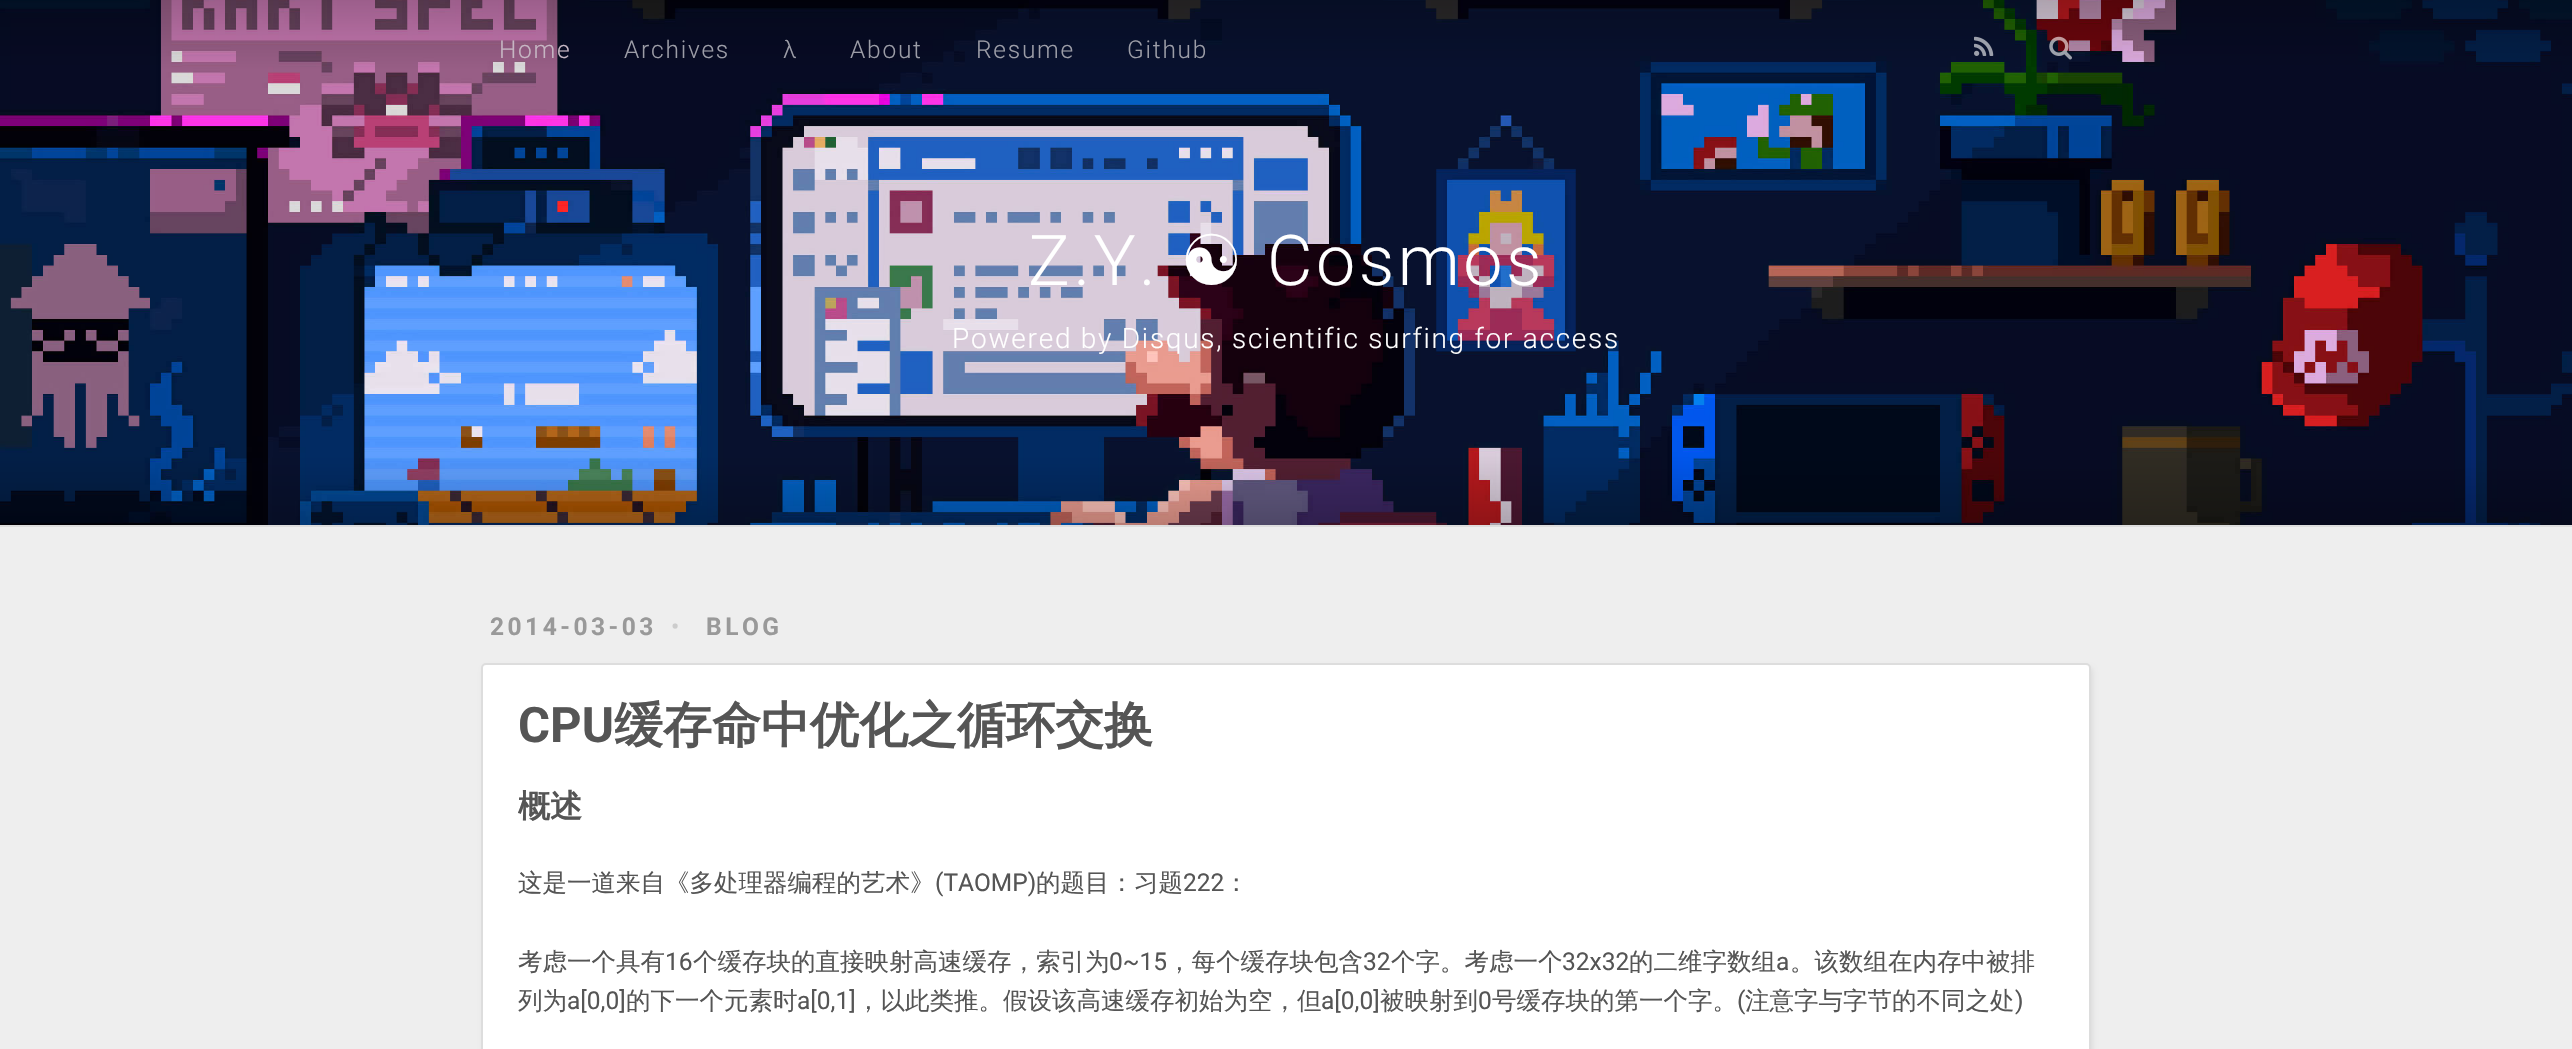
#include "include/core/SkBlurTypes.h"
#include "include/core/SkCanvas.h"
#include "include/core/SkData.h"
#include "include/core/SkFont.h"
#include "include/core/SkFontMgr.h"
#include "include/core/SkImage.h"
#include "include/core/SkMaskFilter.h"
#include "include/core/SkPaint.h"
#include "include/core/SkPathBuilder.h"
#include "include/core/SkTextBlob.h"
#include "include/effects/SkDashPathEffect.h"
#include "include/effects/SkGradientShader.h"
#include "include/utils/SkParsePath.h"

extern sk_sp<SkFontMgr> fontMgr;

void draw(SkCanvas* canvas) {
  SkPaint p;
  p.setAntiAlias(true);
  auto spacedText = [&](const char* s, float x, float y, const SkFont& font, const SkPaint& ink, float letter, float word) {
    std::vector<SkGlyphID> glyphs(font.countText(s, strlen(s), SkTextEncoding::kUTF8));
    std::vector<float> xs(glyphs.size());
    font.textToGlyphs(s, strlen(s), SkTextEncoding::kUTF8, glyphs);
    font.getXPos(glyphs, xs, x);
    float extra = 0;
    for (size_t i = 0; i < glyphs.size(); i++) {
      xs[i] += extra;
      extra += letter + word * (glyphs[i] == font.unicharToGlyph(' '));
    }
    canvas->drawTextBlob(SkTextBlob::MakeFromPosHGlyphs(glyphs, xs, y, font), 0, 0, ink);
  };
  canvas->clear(SkColorSetRGB(238, 238, 238));
  p.setColor(SkColorSetRGB(221, 221, 221));
  canvas->drawRect(SkRect::MakeLTRB(0, 525, 2572, 527), p);
  canvas->drawImageRect(SkImages::DeferredFromEncodedData(SkData::MakeFromFileName("images/1.png")), SkRect::MakeLTRB(0, 0, 2572, 525), SkSamplingOptions());
  canvas->drawImageRect(SkImages::DeferredFromEncodedData(SkData::MakeFromFileName("images/2.png")), SkRect::MakeLTRB(1974, 36, 1994, 56), SkSamplingOptions());
  canvas->drawImageRect(SkImages::DeferredFromEncodedData(SkData::MakeFromFileName("images/3.png")), SkRect::MakeLTRB(2049, 36, 2072, 60), SkSamplingOptions());
  p.setMaskFilter(SkMaskFilter::MakeBlur(kNormal_SkBlurStyle, 2.5f));
  canvas->drawRoundRect(SkRect::MakeLTRB(483, 667, 2093, 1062), 5, 5, p);
  p.setMaskFilter(nullptr);
  p.setColor(SK_ColorWHITE);
  canvas->drawRoundRect(SkRect::MakeLTRB(482, 664, 2090, 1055), 4, 4, p);
  p.setStyle(SkPaint::kStroke_Style);
  p.setStrokeWidth(2);
  p.setColor(SkColorSetRGB(221, 221, 221));
  canvas->drawRoundRect(SkRect::MakeLTRB(482, 664, 2090, 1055), 4, 4, p);
  SkFont font1(fontMgr->matchFamilyStyle("Roboto", SkFontStyle(300, SkFontStyle::kNormal_Width, SkFontStyle::kUpright_Slant)), 24.5f);
  font1.setSubpixel(true);
  p.setStyle(SkPaint::kFill_Style);
  p.setColor(SkColorSetRGB(198, 182, 195));
  spacedText("Home", 499, 58, font1, p, 1.75f, 0);
  p.setColor(SkColorSetRGB(156, 157, 167));
  spacedText("Archives", 624, 58, font1, p, 1.75f, 0);
  spacedText("λ", 783, 58, font1, p, 1.75f, 0);
  spacedText("About", 850, 58, font1, p, 1.75f, 0);
  spacedText("Resume", 976, 58, font1, p, 1.75f, 0);
  spacedText("Github", 1127, 58, font1, p, 1.75f, 0);
  SkFont font2(fontMgr->matchFamilyStyle("Roboto", SkFontStyle(300, SkFontStyle::kNormal_Width, SkFontStyle::kUpright_Slant)), 70);
  font2.setSubpixel(true);
  p.setColor(SK_ColorWHITE);
  spacedText("Z.Y.", 1028, 285, font2, p, 3.5f, 0);
  SkFont font3(fontMgr->matchFamilyStyle("DejaVu Sans", SkFontStyle::Normal()), 70);
  font3.setSubpixel(true);
  spacedText("☯", 1180, 285, font3, p, 3.5f, 0);
  spacedText("Cosmos", 1267, 285, font2, p, 3.5f, 0);
  SkFont font4(fontMgr->matchFamilyStyle("Roboto", SkFontStyle(300, SkFontStyle::kNormal_Width, SkFontStyle::kUpright_Slant)), 28);
  font4.setSubpixel(true);
  spacedText("Powered by Disqus, scientific surfing for access", 952, 348, font4, p, 1.75f, 0);
  SkFont font5(fontMgr->matchFamilyStyle("Roboto", SkFontStyle::Bold()), 24.5f);
  font5.setSubpixel(true);
  p.setColor(SkColorSetRGB(153, 153, 153));
  spacedText("2014-03-03", 490, 635, font5, p, 3.5f, 0);
  SkFont font6(fontMgr->matchFamilyStyle("Roboto", SkFontStyle::Normal()), 24.5f);
  font6.setSubpixel(true);
  p.setColor(SkColorSetRGB(204, 204, 204));
  canvas->drawString("•", 671, 635, font6, p);
  p.setColor(SkColorSetRGB(153, 153, 153));
  spacedText("BLOG", 706, 635, font5, p, 3.5f, 0);
  SkFont font7(fontMgr->matchFamilyStyle("Roboto", SkFontStyle::Bold()), 49);
  font7.setSubpixel(true);
  p.setColor(SkColorSetRGB(85, 85, 85));
  canvas->drawString("CPU", 518, 742, font7, p);
  SkFont font8(fontMgr->matchFamilyStyle("WenQuanYi Zen Hei", SkFontStyle::Bold()), 49);
  font8.setSubpixel(true);
  canvas->drawString("缓存命中优化之循环交换", 614, 742, font8, p);
  SkFont font9(fontMgr->matchFamilyStyle("WenQuanYi Zen Hei", SkFontStyle::Bold()), 32);
  font9.setSubpixel(true);
  canvas->drawString("概述", 518, 817, font9, p);
  SkFont font10(fontMgr->matchFamilyStyle("WenQuanYi Zen Hei", SkFontStyle(500, SkFontStyle::kNormal_Width, SkFontStyle::kUpright_Slant)), 24.5f);
  font10.setSubpixel(true);
  canvas->drawString("这是一道来自《多处理器编程的艺术》", 518, 891, font10, p);
  canvas->drawString("(TAOMP)", 935, 891, font6, p);
  canvas->drawString("的题目：习题", 1036, 891, font10, p);
  canvas->drawString("222", 1183, 891, font6, p);
  canvas->drawString("：", 1224, 891, font10, p);
  canvas->drawString("考虑一个具有", 518, 970, font10, p);
  canvas->drawString("16", 665, 970, font6, p);
  canvas->drawString("个缓存块的直接映射高速缓存，索引为", 693, 970, font10, p);
  canvas->drawString("0~15", 1109, 970, font6, p);
  canvas->drawString("，每个缓存块包含", 1167, 970, font10, p);
  canvas->drawString("32", 1363, 970, font6, p);
  canvas->drawString("个字。考虑一个", 1391, 970, font10, p);
  canvas->drawString("32x32", 1562, 970, font6, p);
  canvas->drawString("的二维字数组", 1629, 970, font10, p);
  canvas->drawString("a", 1776, 970, font6, p);
  canvas->drawString("。该数组在内存中被排", 1790, 970, font10, p);
  canvas->drawString("列为", 518, 1009, font10, p);
  canvas->drawString("a[0,0]", 567, 1009, font6, p);
  canvas->drawString("的下一个元素时", 626, 1009, font10, p);
  canvas->drawString("a[0,1]", 797, 1009, font6, p);
  canvas->drawString("，以此类推。假设该高速缓存初始为空，但", 856, 1009, font10, p);
  canvas->drawString("a[0,0]", 1321, 1009, font6, p);
  canvas->drawString("被映射到", 1380, 1009, font10, p);
  canvas->drawString("0", 1478, 1009, font6, p);
  canvas->drawString("号缓存块的第一个字。", 1492, 1009, font10, p);
  canvas->drawString("(", 1737, 1009, font6, p);
  canvas->drawString("注意字与字节的不同之处", 1745, 1009, font10, p);
  canvas->drawString(")", 2015, 1009, font6, p);
}
